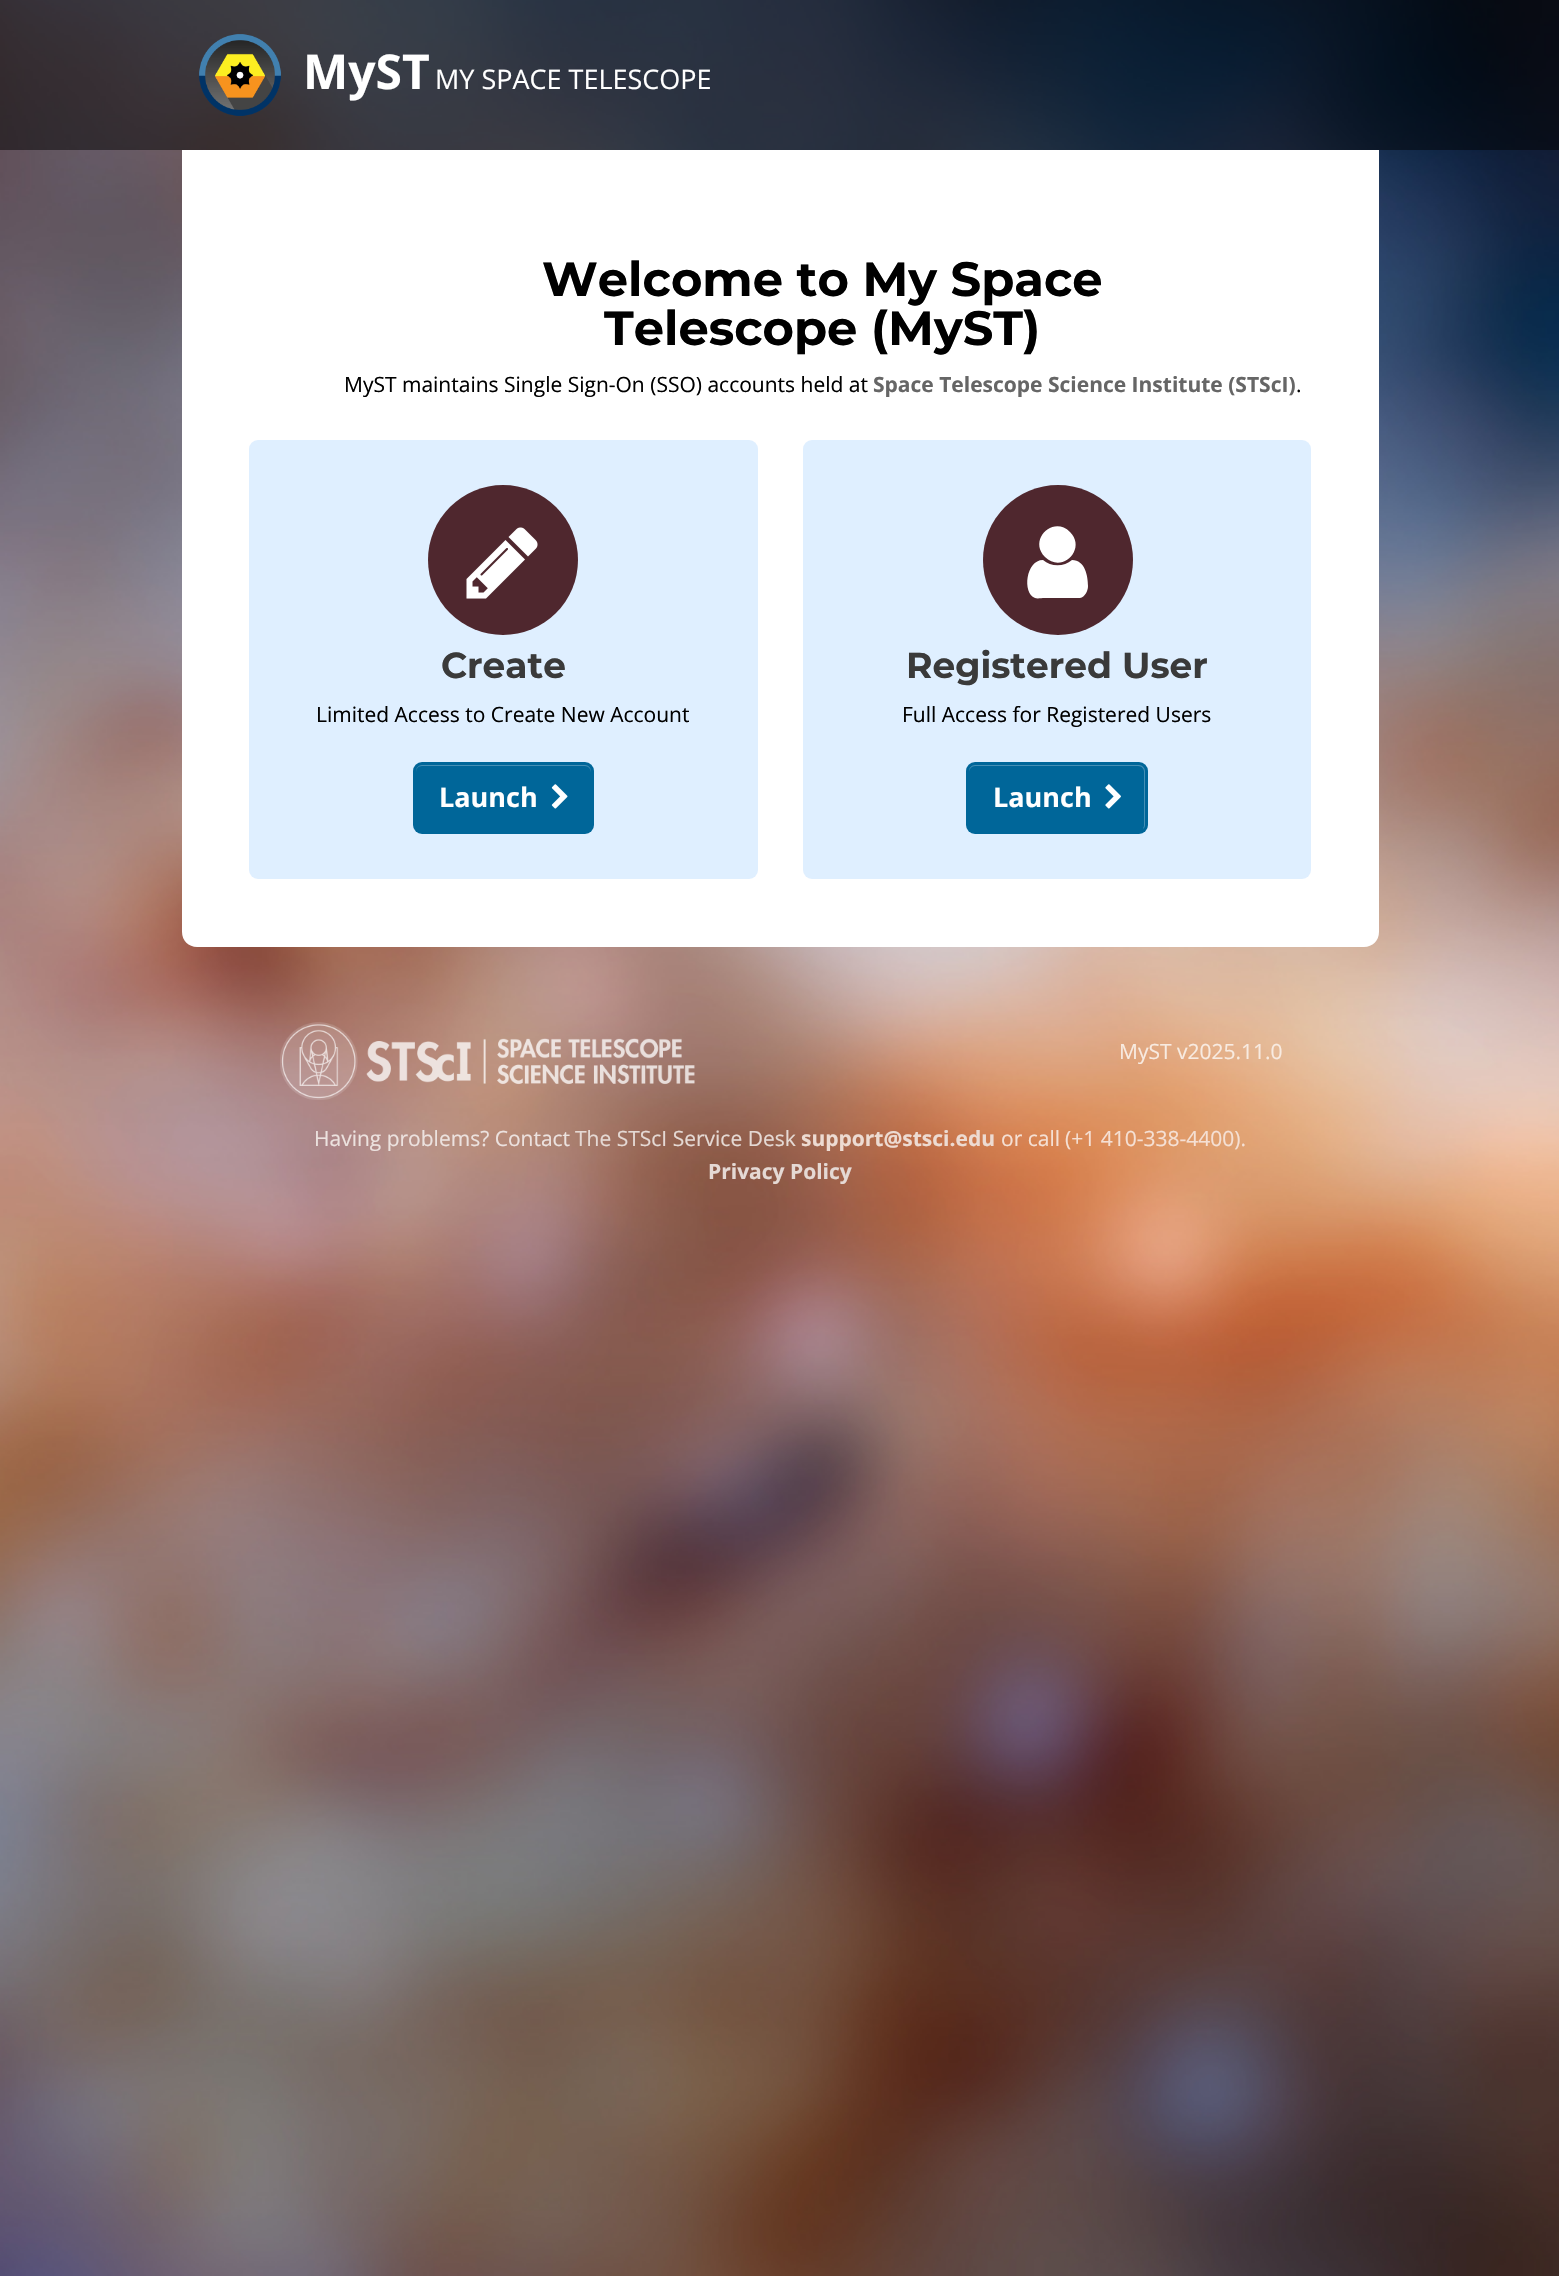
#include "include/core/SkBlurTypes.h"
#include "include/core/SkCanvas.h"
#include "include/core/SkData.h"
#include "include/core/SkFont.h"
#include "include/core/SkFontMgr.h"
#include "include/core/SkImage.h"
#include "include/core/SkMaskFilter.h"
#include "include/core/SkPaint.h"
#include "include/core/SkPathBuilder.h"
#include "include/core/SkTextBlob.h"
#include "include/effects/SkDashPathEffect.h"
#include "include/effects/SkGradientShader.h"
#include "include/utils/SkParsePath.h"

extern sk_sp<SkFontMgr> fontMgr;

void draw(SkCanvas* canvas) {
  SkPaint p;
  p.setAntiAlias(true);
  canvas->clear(SK_ColorWHITE);
  canvas->drawImageRect(SkImages::DeferredFromEncodedData(SkData::MakeFromFileName("images/1.png")), SkRect::MakeLTRB(0, 0, 1559, 2276), SkSamplingOptions());
  p.setColor(SkColorSetARGB(128, 0, 0, 0));
  canvas->drawRect(SkRect::MakeLTRB(0, 0, 1559, 150), p);
  canvas->drawImageRect(SkImages::DeferredFromEncodedData(SkData::MakeFromFileName("images/2.png")), SkRect::MakeLTRB(199, 34, 281, 116), SkSamplingOptions());
  p.setColor(SK_ColorWHITE);
  canvas->drawPath(SkPathBuilder().moveTo(182, 150).lineTo(1379, 150).lineTo(1379, 932).cubicTo(1379, 940.5f, 1372.5f, 947, 1364, 947).lineTo(197, 947).cubicTo(188.5f, 947, 182, 940.5f, 182, 932).close().detach(), p);
  p.setColor(SkColorSetRGB(223, 239, 255));
  canvas->drawRoundRect(SkRect::MakeLTRB(249, 440, 758, 879), 9, 9, p);
  p.setColor(SkColorSetRGB(79, 39, 46));
  canvas->drawCircle(503, 560, 75, p);
  canvas->drawImageRect(SkImages::DeferredFromEncodedData(SkData::MakeFromFileName("images/3.png")), SkRect::MakeLTRB(466, 527, 538, 599), SkSamplingOptions());
  p.setColor(SkColorSetRGB(0, 102, 153));
  canvas->drawRoundRect(SkRect::MakeLTRB(413, 762, 594, 834), 9, 9, p);
  p.setColor(SkColorSetRGB(69, 143, 181));
  canvas->drawPath(SkPathBuilder().moveTo(422, 766).lineTo(585, 766).cubicTo(588, 766, 591, 769, 591, 772).lineTo(591, 771).cubicTo(591, 768, 588, 765, 585, 765).lineTo(422, 765).cubicTo(419, 765, 416, 768, 416, 771).lineTo(416, 772).cubicTo(416, 769, 418, 766, 422, 766).close().detach(), p);
  canvas->drawImageRect(SkImages::DeferredFromEncodedData(SkData::MakeFromFileName("images/4.png")), SkRect::MakeLTRB(551, 784, 568, 809), SkSamplingOptions());
  p.setColor(SkColorSetRGB(223, 239, 255));
  canvas->drawRoundRect(SkRect::MakeLTRB(803, 440, 1311, 879), 9, 9, p);
  p.setColor(SkColorSetRGB(79, 39, 46));
  canvas->drawCircle(1058, 560, 75, p);
  p.setColor(SK_ColorWHITE);
  canvas->drawPath(SkPathBuilder().moveTo(1088, 586).cubicTo(1088, 591, 1085, 597, 1080, 598).lineTo(1044, 598).cubicTo(1042, 598, 1037, 599, 1035, 598).cubicTo(1022, 593, 1026, 560, 1043, 560).cubicTo(1051, 567, 1064, 567, 1072, 560).cubicTo(1085, 560, 1088, 576, 1088, 586).close().moveTo(1070, 532).cubicTo(1087, 549, 1062, 574, 1045, 557).cubicTo(1028, 540, 1053, 515, 1070, 532).close().detach(), p);
  p.setColor(SkColorSetRGB(0, 102, 153));
  canvas->drawRoundRect(SkRect::MakeLTRB(966, 762, 1148, 834), 9, 9, p);
  p.setColor(SkColorSetRGB(69, 143, 181));
  canvas->drawPath(SkPathBuilder().moveTo(975, 766).lineTo(1138, 766).cubicTo(1142, 766, 1144, 769, 1144, 772).lineTo(1144, 826).lineTo(1143, 829).cubicTo(1144, 828, 1145, 827, 1145, 825).lineTo(1145, 771).cubicTo(1145, 768, 1142, 765, 1139, 765).lineTo(975, 765).cubicTo(972, 765, 969, 768, 969, 771).lineTo(969, 772).cubicTo(969, 769, 972, 766, 975, 766).close().detach(), p);
  canvas->drawImageRect(SkImages::DeferredFromEncodedData(SkData::MakeFromFileName("images/5.png")), SkRect::MakeLTRB(1105, 784, 1121, 809), SkSamplingOptions());
  canvas->drawImageRect(SkImages::DeferredFromEncodedData(SkData::MakeFromFileName("images/6.png")), SkRect::MakeLTRB(280, 1022, 695, 1100), SkSamplingOptions());
  SkFont font1(fontMgr->matchFamilyStyle("Open Sans", SkFontStyle::Bold()), 48);
  font1.setSubpixel(true);
  p.setColor(SK_ColorWHITE);
  canvas->drawString("MyST", 303, 89, font1, p);
  SkFont font2(fontMgr->matchFamilyStyle("Open Sans", SkFontStyle::Normal()), 27);
  font2.setSubpixel(true);
  canvas->drawString("MY SPACE TELESCOPE", 435, 89, font2, p);
  SkFont font3(fontMgr->matchFamilyStyle("Montserrat", SkFontStyle::Bold()), 48);
  font3.setSubpixel(true);
  p.setColor(SK_ColorBLACK);
  canvas->drawString("Welcome to My Space", 542, 296, font3, p);
  canvas->drawString("Telescope (MyST)", 604, 345, font3, p);
  SkFont font4(fontMgr->matchFamilyStyle("Open Sans", SkFontStyle::Normal()), 21);
  font4.setSubpixel(true);
  canvas->drawString("MyST maintains Single Sign-On (SSO) accounts held at", 344, 392, font4, p);
  SkFont font5(fontMgr->matchFamilyStyle("Open Sans", SkFontStyle::Bold()), 21);
  font5.setSubpixel(true);
  p.setColor(SkColorSetRGB(102, 102, 102));
  canvas->drawString("Space Telescope Science Institute (STScI)", 873, 392, font5, p);
  p.setColor(SK_ColorBLACK);
  canvas->drawString(".", 1296, 392, font4, p);
  SkFont font6(fontMgr->matchFamilyStyle("Montserrat", SkFontStyle::Bold()), 36);
  font6.setSubpixel(true);
  p.setColor(SkColorSetRGB(58, 58, 58));
  canvas->drawString("Create", 441, 678, font6, p);
  p.setColor(SK_ColorBLACK);
  canvas->drawString("Limited Access to Create New Account", 316, 722, font4, p);
  SkFont font7(fontMgr->matchFamilyStyle("Open Sans", SkFontStyle::Bold()), 27);
  font7.setSubpixel(true);
  p.setColor(SK_ColorWHITE);
  canvas->drawString("Launch", 439, 807, font7, p);
  p.setColor(SkColorSetRGB(58, 58, 58));
  canvas->drawString("Registered User", 906, 678, font6, p);
  p.setColor(SK_ColorBLACK);
  canvas->drawString("Full Access for Registered Users", 902, 722, font4, p);
  p.setColor(SK_ColorWHITE);
  canvas->drawString("Launch", 993, 807, font7, p);
  p.setColor(SkColorSetRGB(248, 235, 225));
  canvas->drawString("MyST v2025.11.0", 1119, 1059, font4, p);
  p.setColor(SkColorSetRGB(236, 226, 223));
  canvas->drawString("Having problems? Contact", 314, 1146, font4, p);
  p.setColor(SkColorSetRGB(229, 217, 212));
  canvas->drawString("The STScI Service Desk", 575, 1146, font4, p);
  p.setColor(SkColorSetRGB(237, 219, 210));
  canvas->drawString("support@stsci.edu", 801, 1146, font5, p);
  p.setColor(SkColorSetRGB(245, 224, 212));
  canvas->drawString("or call", 1001, 1146, font4, p);
  canvas->drawString("(+1 410-338-4400).", 1065, 1146, font4, p);
  p.setColor(SkColorSetRGB(229, 217, 212));
  canvas->drawString("Privacy Policy", 708, 1179, font5, p);
}
